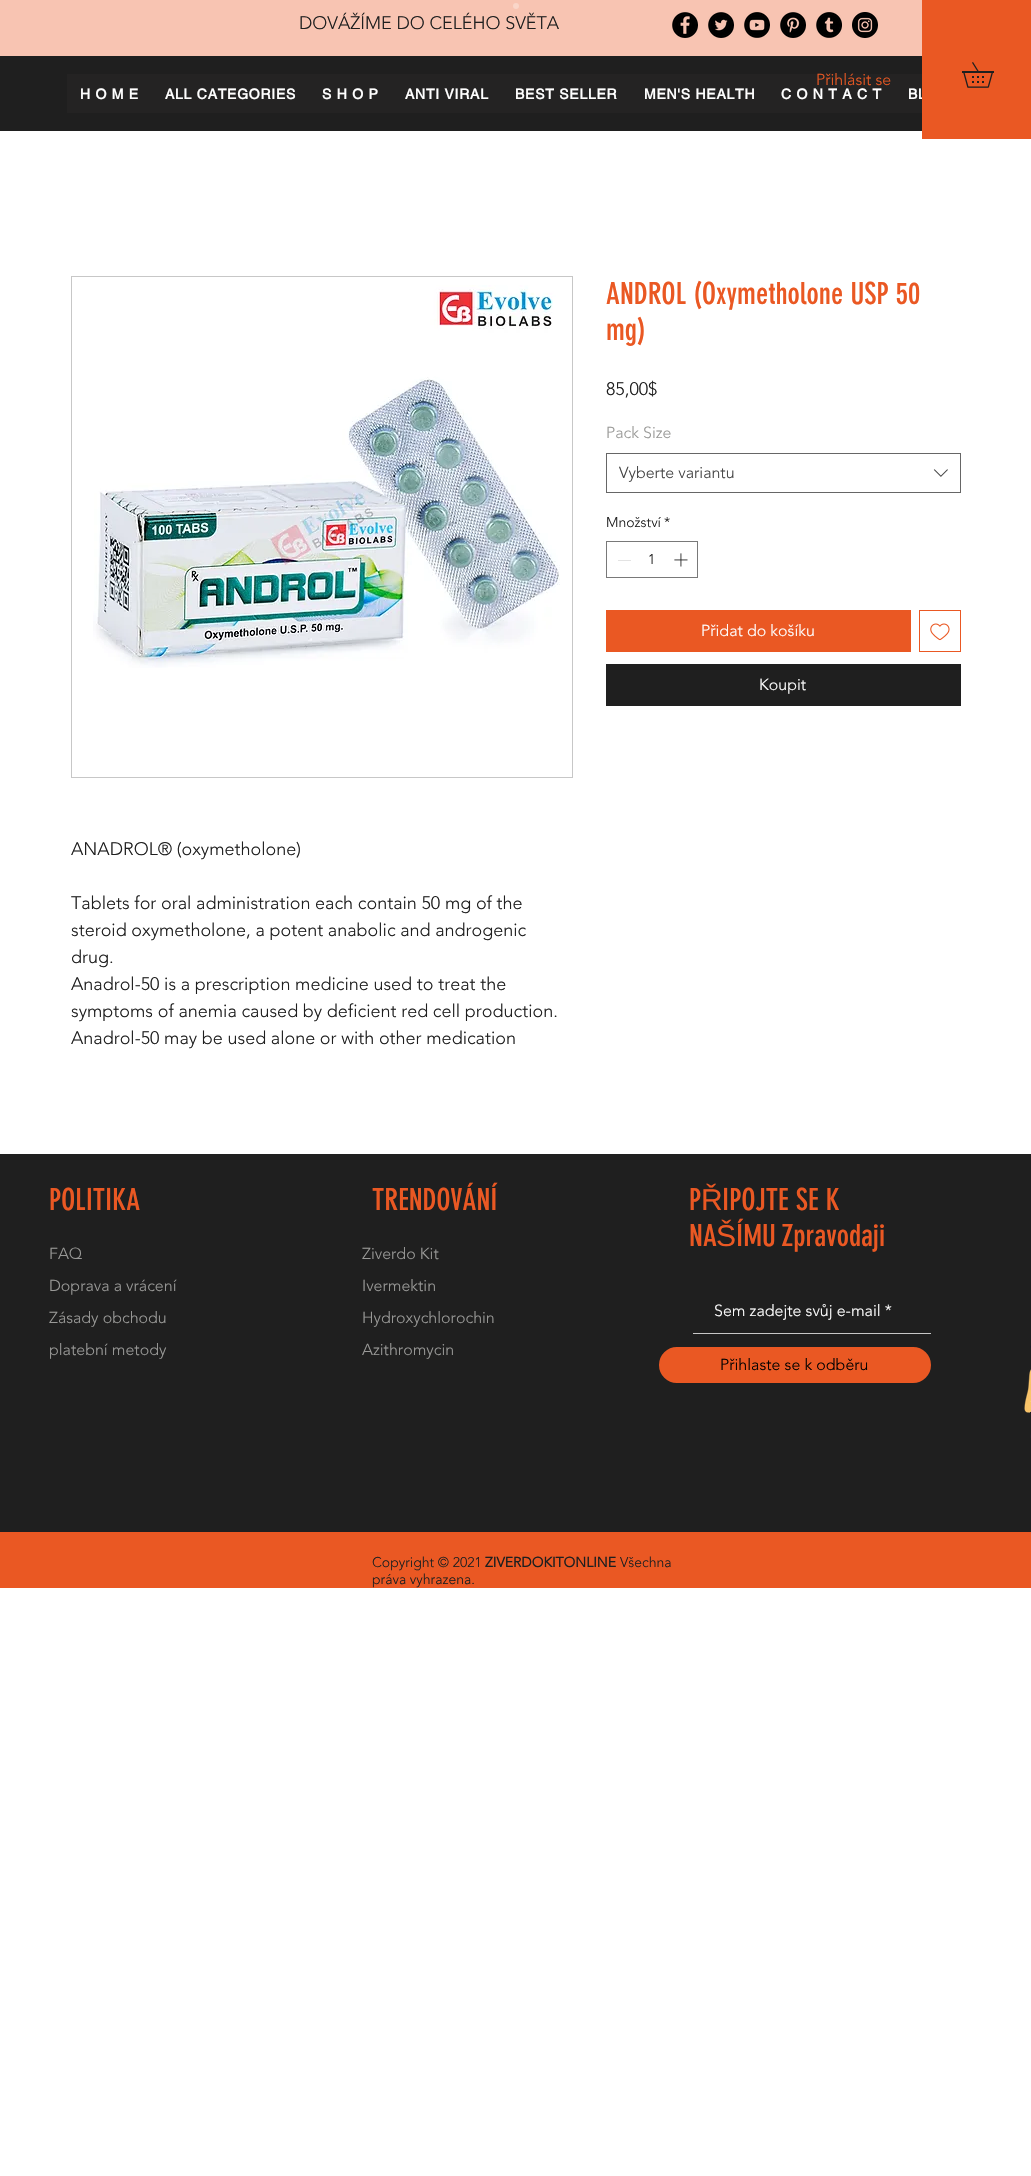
#include "include/core/SkBlurTypes.h"
#include "include/core/SkCanvas.h"
#include "include/core/SkData.h"
#include "include/core/SkFont.h"
#include "include/core/SkFontMgr.h"
#include "include/core/SkImage.h"
#include "include/core/SkMaskFilter.h"
#include "include/core/SkPaint.h"
#include "include/core/SkPathBuilder.h"
#include "include/core/SkTextBlob.h"
#include "include/effects/SkDashPathEffect.h"
#include "include/effects/SkGradientShader.h"
#include "include/utils/SkParsePath.h"

extern sk_sp<SkFontMgr> fontMgr;

void draw(SkCanvas* canvas) {
  SkPaint p;
  p.setAntiAlias(true);
  auto spacedText = [&](const char* s, float x, float y, const SkFont& font, const SkPaint& ink, float letter, float word) {
    std::vector<SkGlyphID> glyphs(font.countText(s, strlen(s), SkTextEncoding::kUTF8));
    std::vector<float> xs(glyphs.size());
    font.textToGlyphs(s, strlen(s), SkTextEncoding::kUTF8, glyphs);
    font.getXPos(glyphs, xs, x);
    float extra = 0;
    for (size_t i = 0; i < glyphs.size(); i++) {
      xs[i] += extra;
      extra += letter + word * (glyphs[i] == font.unicharToGlyph(' '));
    }
    canvas->drawTextBlob(SkTextBlob::MakeFromPosHGlyphs(glyphs, xs, y, font), 0, 0, ink);
  };
  canvas->clear(SK_ColorWHITE);
  p.setColor(SkColorSetRGB(248, 196, 178));
  canvas->drawRect(SkRect::MakeLTRB(0, 0, 922, 56), p);
  p.setColor(SkColorSetRGB(250, 214, 201));
  canvas->drawCircle(516, 6, 3, p);
  canvas->drawImageRect(SkImages::DeferredFromEncodedData(SkData::MakeFromFileName("images/1.png")), SkRect::MakeLTRB(672, 12, 698, 38), SkSamplingOptions());
  canvas->drawImageRect(SkImages::DeferredFromEncodedData(SkData::MakeFromFileName("images/2.png")), SkRect::MakeLTRB(708, 12, 734, 38), SkSamplingOptions());
  canvas->drawImageRect(SkImages::DeferredFromEncodedData(SkData::MakeFromFileName("images/3.png")), SkRect::MakeLTRB(744, 12, 770, 38), SkSamplingOptions());
  canvas->drawImageRect(SkImages::DeferredFromEncodedData(SkData::MakeFromFileName("images/4.png")), SkRect::MakeLTRB(780, 12, 806, 38), SkSamplingOptions());
  canvas->drawImageRect(SkImages::DeferredFromEncodedData(SkData::MakeFromFileName("images/5.png")), SkRect::MakeLTRB(816, 12, 842, 38), SkSamplingOptions());
  canvas->drawImageRect(SkImages::DeferredFromEncodedData(SkData::MakeFromFileName("images/6.png")), SkRect::MakeLTRB(852, 12, 878, 38), SkSamplingOptions());
  p.setColor(SkColorSetRGB(31, 31, 31));
  canvas->drawRect(SkRect::MakeLTRB(0, 56, 922, 131), p);
  p.setColor(SkColorSetRGB(36, 35, 35));
  canvas->drawRect(SkRect::MakeLTRB(67, 74, 922, 113), p);
  p.setStyle(SkPaint::kStroke_Style);
  p.setStrokeWidth(1);
  p.setColor(SkColorSetRGB(102, 102, 102));
  canvas->drawRect(SkRect::MakeLTRB(606.5f, 453.5f, 960.5f, 492.5f), p);
  canvas->drawImageRect(SkImages::DeferredFromEncodedData(SkData::MakeFromFileName("images/8.png")), SkRect::MakeLTRB(933, 469, 948, 477), SkSamplingOptions());
  p.setColor(SkColorSetRGB(121, 121, 121));
  canvas->drawRect(SkRect::MakeLTRB(606.5f, 541.5f, 697.5f, 577.5f), p);
  p.setStyle(SkPaint::kFill_Style);
  p.setColor(SkColorSetRGB(227, 227, 227));
  canvas->drawRect(SkRect::MakeLTRB(618, 560, 631, 561), p);
  canvas->drawImageRect(SkImages::DeferredFromEncodedData(SkData::MakeFromFileName("images/9.png")), SkRect::MakeLTRB(674, 553, 688, 567), SkSamplingOptions());
  p.setColor(SkColorSetRGB(234, 88, 35));
  canvas->drawRect(SkRect::MakeLTRB(606, 610, 911, 652), p);
  p.setStyle(SkPaint::kStroke_Style);
  canvas->drawRect(SkRect::MakeLTRB(919.5f, 610.5f, 960.5f, 651.5f), p);
  canvas->drawImageRect(SkImages::DeferredFromEncodedData(SkData::MakeFromFileName("images/10.png")), SkRect::MakeLTRB(930, 623, 950, 641), SkSamplingOptions());
  p.setStyle(SkPaint::kFill_Style);
  p.setColor(SkColorSetRGB(31, 31, 31));
  canvas->drawRect(SkRect::MakeLTRB(606, 664, 961, 706), p);
  p.setStyle(SkPaint::kStroke_Style);
  p.setColor(SkColorSetRGB(199, 199, 199));
  canvas->drawRect(SkRect::MakeLTRB(71.5f, 276.5f, 572.5f, 777.5f), p);
  canvas->drawImageRect(SkImages::DeferredFromEncodedData(SkData::MakeFromFileName("images/11.png")), SkRect::MakeLTRB(93, 285, 560, 668), SkSamplingOptions());
  p.setStyle(SkPaint::kFill_Style);
  p.setColor(SkColorSetRGB(31, 31, 31));
  canvas->drawRect(SkRect::MakeLTRB(0, 1154, 1031, 1532), p);
  p.setColor(SkColorSetRGB(199, 199, 199));
  canvas->drawRect(SkRect::MakeLTRB(693, 1333, 931, 1334), p);
  p.setColor(SkColorSetRGB(234, 88, 35));
  canvas->drawRoundRect(SkRect::MakeLTRB(660, 1348, 930, 1382), 17, 17, p);
  p.setStyle(SkPaint::kStroke_Style);
  p.setStrokeWidth(2);
  canvas->drawRoundRect(SkRect::MakeLTRB(660, 1348, 930, 1382), 17, 17, p);
  canvas->drawImageRect(SkImages::DeferredFromEncodedData(SkData::MakeFromFileName("images/12.png")), SkRect::MakeLTRB(1024, 1346, 1031, 1438), SkSamplingOptions());
  p.setStyle(SkPaint::kFill_Style);
  canvas->drawRect(SkRect::MakeLTRB(0, 1532, 1031, 1588), p);
  SkFont font1(fontMgr->matchFamilyStyle("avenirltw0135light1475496", SkFontStyle(300, SkFontStyle::kNormal_Width, SkFontStyle::kUpright_Slant)), 18);
  font1.setSubpixel(true);
  p.setColor(SkColorSetRGB(31, 31, 31));
  canvas->drawString("DOVÁŽÍME DO CELÉHO SVĚTA", 299, 29, font1, p);
  SkFont font2(fontMgr->matchFamilyStyle("helvetica", SkFontStyle::Bold()), 14);
  font2.setSubpixel(true);
  p.setColor(SK_ColorWHITE);
  spacedText("H O M E", 80, 99, font2, p, 0.75f, 0);
  spacedText("ALL CATEGORIES", 165, 99, font2, p, 0.75f, 0);
  spacedText("S H O P", 322, 99, font2, p, 0.75f, 0);
  spacedText("ANTI VIRAL", 405, 99, font2, p, 0.75f, 0);
  spacedText("BEST SELLER", 515, 99, font2, p, 0.75f, 0);
  spacedText("MEN'S HEALTH", 644, 99, font2, p, 0.75f, 0);
  spacedText("C O N T A C T", 781, 99, font2, p, 0.75f, 0);
  spacedText("BL", 908, 99, font2, p, 0.75f, 0);
  SkFont font3(fontMgr->matchFamilyStyle("avenirltw0135light1475496", SkFontStyle(300, SkFontStyle::kNormal_Width, SkFontStyle::kUpright_Slant)), 16);
  font3.setSubpixel(true);
  p.setColor(SkColorSetRGB(234, 88, 35));
  canvas->drawString("Přihlásit se", 816, 85, font3, p);
  canvas->drawRect(SkRect::MakeLTRB(922, 0, 1031, 139), p);
  canvas->drawImageRect(SkImages::DeferredFromEncodedData(SkData::MakeFromFileName("images/7.png")), SkRect::MakeLTRB(962, 62, 994, 88), SkSamplingOptions());
  SkFont font4(fontMgr->matchFamilyStyle("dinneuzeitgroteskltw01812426", SkFontStyle::Normal()), 30);
  font4.setSubpixel(true);
  canvas->drawString("ANDROL (Oxymetholone USP 50", 606, 304, font4, p);
  canvas->drawString("mg)", 606, 340, font4, p);
  p.setColor(SkColorSetRGB(31, 31, 31));
  canvas->drawString("85,00$", 606, 395, font1, p);
  p.setColor(SkColorSetRGB(153, 153, 151));
  canvas->drawString("Pack Size", 606, 438, font3, p);
  p.setColor(SkColorSetRGB(68, 68, 68));
  canvas->drawString("Vyberte variantu", 619, 478, font3, p);
  SkFont font5(fontMgr->matchFamilyStyle("avenirltw0135light1475496", SkFontStyle(300, SkFontStyle::kNormal_Width, SkFontStyle::kUpright_Slant)), 14);
  font5.setSubpixel(true);
  p.setColor(SkColorSetRGB(31, 31, 31));
  canvas->drawString("Množství", 606, 527, font5, p);
  canvas->drawString("*", 664, 527, font5, p);
  canvas->drawString("1", 648, 564, font5, p);
  p.setColor(SK_ColorWHITE);
  canvas->drawString("Přidat do košíku", 701, 636, font3, p);
  canvas->drawString("Koupit", 759, 690, font3, p);
  p.setColor(SkColorSetRGB(31, 31, 31));
  canvas->drawString("ANADROL® (oxymetholone)", 71, 855, font1, p);
  canvas->drawString("Tablets for oral administration each contain 50 mg of the", 71, 909, font1, p);
  canvas->drawString("steroid oxymetholone, a potent anabolic and androgenic", 71, 936, font1, p);
  canvas->drawString("drug.", 71, 963, font1, p);
  canvas->drawString("Anadrol-50 is a prescription medicine used to treat the", 71, 990, font1, p);
  canvas->drawString("symptoms of anemia caused by deficient red cell production.", 71, 1017, font1, p);
  canvas->drawString("Anadrol-50 may be used alone or with other medication", 71, 1044, font1, p);
  p.setColor(SkColorSetRGB(234, 88, 35));
  canvas->drawString("POLITIKA", 49, 1210, font4, p);
  p.setColor(SkColorSetRGB(153, 153, 151));
  canvas->drawString("FAQ", 49, 1259, font3, p);
  canvas->drawString("Doprava a vrácení", 49, 1291, font3, p);
  canvas->drawString("Zásady obchodu", 49, 1323, font3, p);
  canvas->drawString("platební metody", 49, 1355, font3, p);
  p.setColor(SkColorSetRGB(234, 88, 35));
  canvas->drawString("TRENDOVÁNÍ", 372, 1210, font4, p);
  p.setColor(SkColorSetRGB(153, 153, 151));
  canvas->drawString("Ziverdo Kit", 362, 1259, font3, p);
  canvas->drawString("Ivermektin", 362, 1291, font3, p);
  canvas->drawString("Hydroxychlorochin", 362, 1323, font3, p);
  canvas->drawString("Azithromycin", 362, 1355, font3, p);
  p.setColor(SkColorSetRGB(234, 88, 35));
  canvas->drawString("P", 689, 1210, font4, p);
  SkFont font6(fontMgr->matchFamilyStyle("Liberation Sans", SkFontStyle::Normal()), 30);
  font6.setSubpixel(true);
  canvas->drawString("Ř", 701, 1210, font6, p);
  canvas->drawString("IPOJTE SE K", 722, 1210, font4, p);
  canvas->drawString("NA", 689, 1246, font4, p);
  canvas->drawString("Š", 716, 1246, font6, p);
  spacedText("ÍMU Zpravodaji", 736, 1246, font4, p, 0, -2);
  p.setColor(SK_ColorWHITE);
  canvas->drawString("Sem zadejte svůj e-mail *", 714, 1316, font3, p);
  p.setColor(SK_ColorBLACK);
  canvas->drawString("Přihlaste se k odběru", 720, 1370, font3, p);
  p.setColor(SkColorSetRGB(31, 31, 31));
  canvas->drawString("Copyright © 2021", 372, 1567, font5, p);
  SkFont font7(fontMgr->matchFamilyStyle("avenirltw0135light1475496", SkFontStyle::Bold()), 14);
  font7.setSubpixel(true);
  canvas->drawString("ZIVERDOKITONLINE", 485, 1567, font7, p);
  canvas->drawString("Všechna", 620, 1567, font5, p);
  canvas->drawString("práva vyhrazena.", 372, 1584, font5, p);
}
